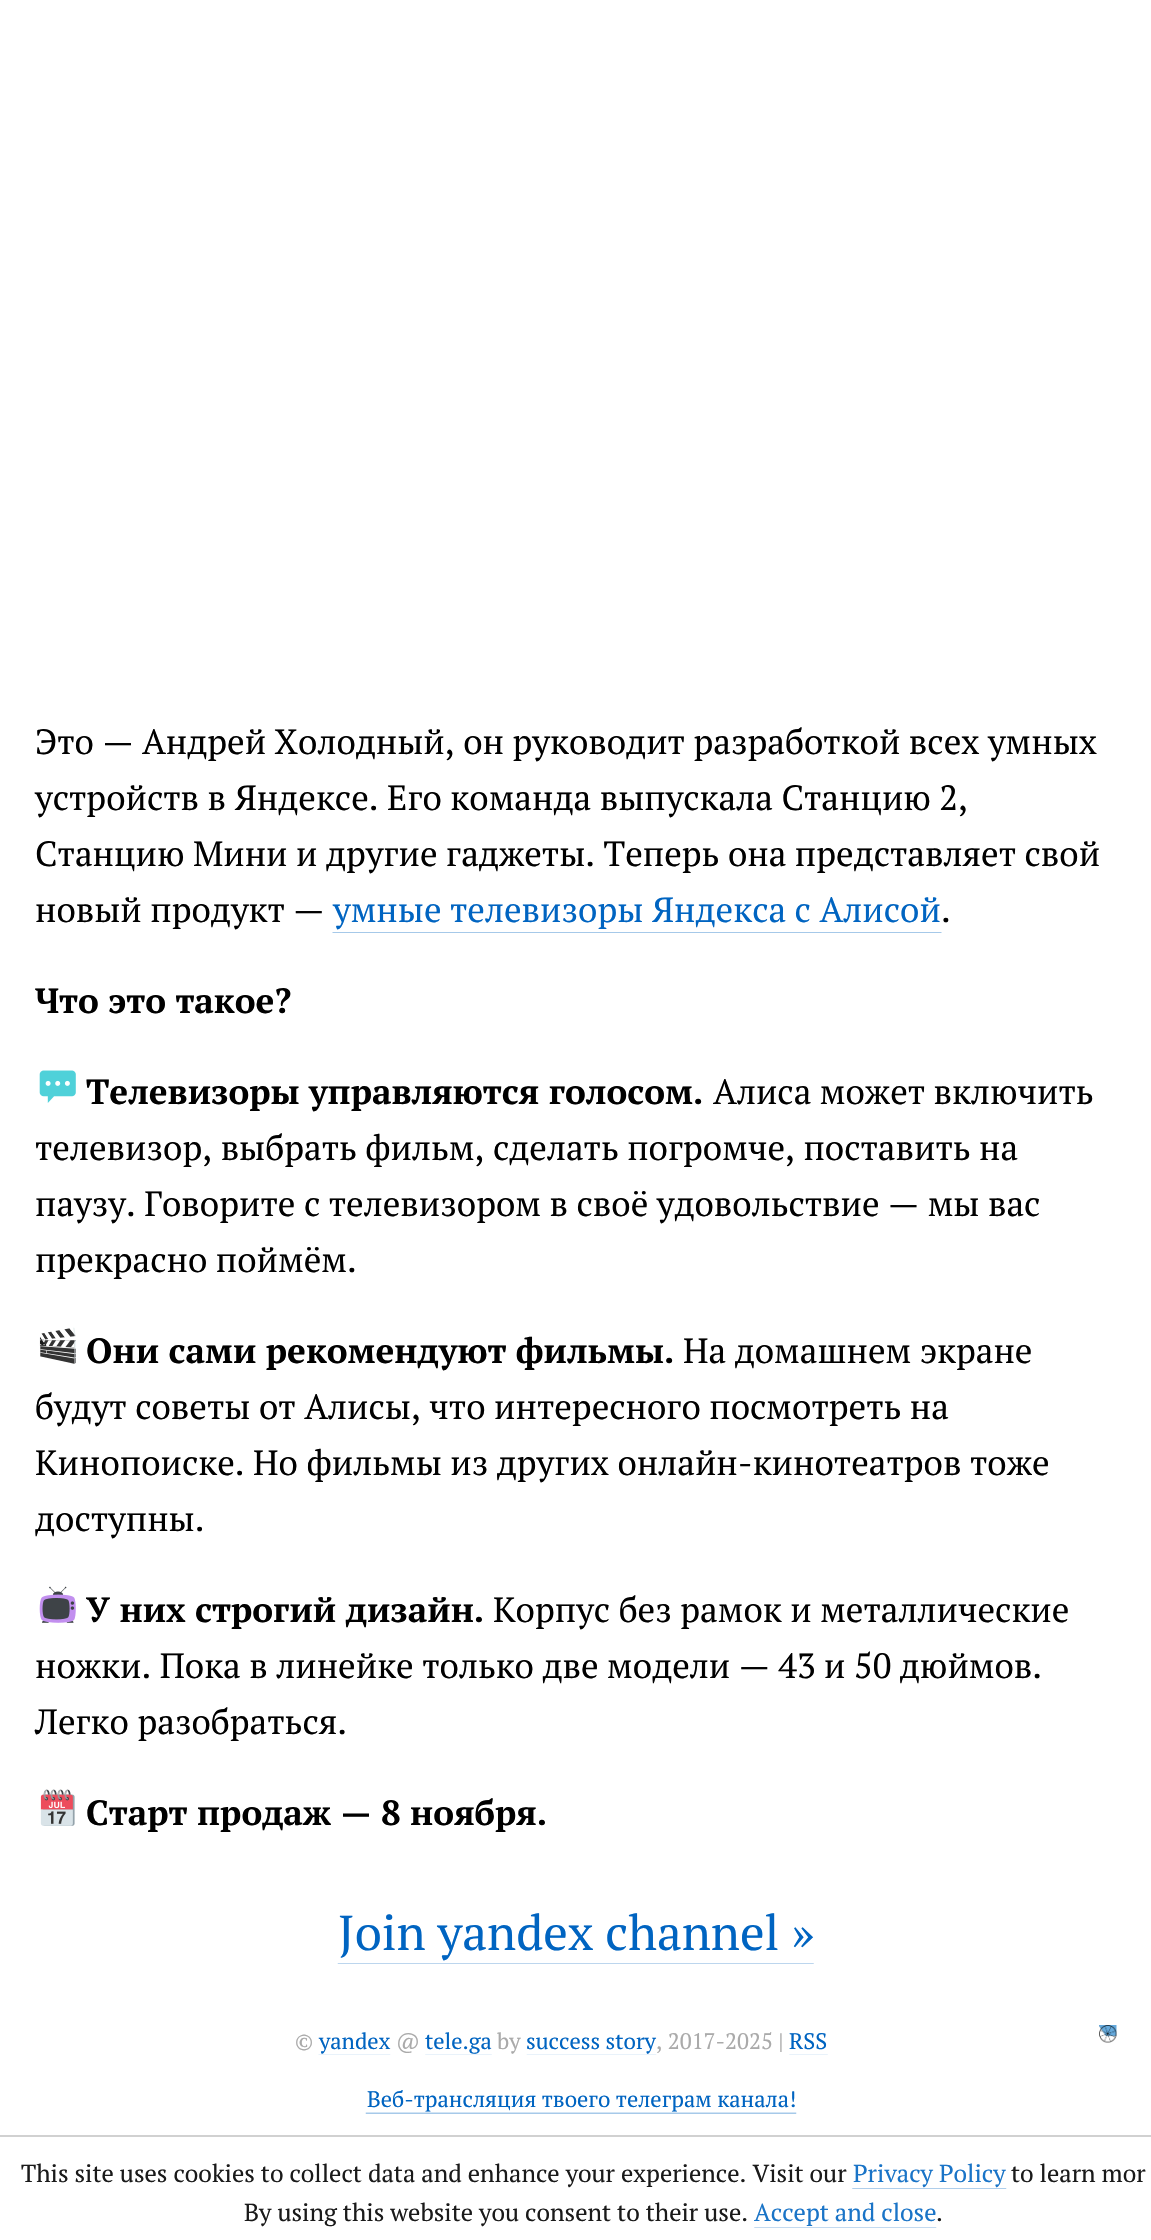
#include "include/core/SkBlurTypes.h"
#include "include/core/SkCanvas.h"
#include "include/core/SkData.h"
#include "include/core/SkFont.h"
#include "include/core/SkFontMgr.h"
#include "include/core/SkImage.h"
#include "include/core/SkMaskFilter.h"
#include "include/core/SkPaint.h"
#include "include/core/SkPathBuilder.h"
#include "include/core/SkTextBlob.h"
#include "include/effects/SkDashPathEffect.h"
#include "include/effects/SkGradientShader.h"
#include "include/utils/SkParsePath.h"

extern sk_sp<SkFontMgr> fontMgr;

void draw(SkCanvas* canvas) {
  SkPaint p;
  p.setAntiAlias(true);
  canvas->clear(SK_ColorWHITE);
  canvas->drawImageRect(SkImages::DeferredFromEncodedData(SkData::MakeFromFileName("images/1.png")), SkRect::MakeLTRB(332, 932, 942, 933), SkSamplingOptions());
  canvas->drawImageRect(SkImages::DeferredFromEncodedData(SkData::MakeFromFileName("images/2.png")), SkRect::MakeLTRB(39, 1070, 76, 1103), SkSamplingOptions());
  canvas->drawImageRect(SkImages::DeferredFromEncodedData(SkData::MakeFromFileName("images/3.png")), SkRect::MakeLTRB(39, 1327, 76, 1364), SkSamplingOptions());
  canvas->drawImageRect(SkImages::DeferredFromEncodedData(SkData::MakeFromFileName("images/4.png")), SkRect::MakeLTRB(39, 1586, 76, 1623), SkSamplingOptions());
  canvas->drawImageRect(SkImages::DeferredFromEncodedData(SkData::MakeFromFileName("images/5.png")), SkRect::MakeLTRB(40, 1789, 75, 1826), SkSamplingOptions());
  canvas->drawImageRect(SkImages::DeferredFromEncodedData(SkData::MakeFromFileName("images/6.png")), SkRect::MakeLTRB(337, 1963, 814, 1964), SkSamplingOptions());
  canvas->drawImageRect(SkImages::DeferredFromEncodedData(SkData::MakeFromFileName("images/7.png")), SkRect::MakeLTRB(1099, 2025, 1117, 2043), SkSamplingOptions());
  canvas->drawImageRect(SkImages::DeferredFromEncodedData(SkData::MakeFromFileName("images/8.png")), SkRect::MakeLTRB(318, 2054, 391, 2055), SkSamplingOptions());
  canvas->drawImageRect(SkImages::DeferredFromEncodedData(SkData::MakeFromFileName("images/9.png")), SkRect::MakeLTRB(425, 2054, 492, 2055), SkSamplingOptions());
  canvas->drawImageRect(SkImages::DeferredFromEncodedData(SkData::MakeFromFileName("images/10.png")), SkRect::MakeLTRB(526, 2054, 657, 2055), SkSamplingOptions());
  canvas->drawImageRect(SkImages::DeferredFromEncodedData(SkData::MakeFromFileName("images/11.png")), SkRect::MakeLTRB(789, 2054, 828, 2055), SkSamplingOptions());
  canvas->drawImageRect(SkImages::DeferredFromEncodedData(SkData::MakeFromFileName("images/12.png")), SkRect::MakeLTRB(365, 2112, 797, 2114), SkSamplingOptions());
  p.setColor(SkColorSetRGB(209, 209, 209));
  canvas->drawRect(SkRect::MakeLTRB(0, 2135, 1151, 2137), p);
  canvas->drawImageRect(SkImages::DeferredFromEncodedData(SkData::MakeFromFileName("images/13.png")), SkRect::MakeLTRB(852, 2188, 1007, 2189), SkSamplingOptions());
  canvas->drawImageRect(SkImages::DeferredFromEncodedData(SkData::MakeFromFileName("images/14.png")), SkRect::MakeLTRB(754, 2227, 937, 2228), SkSamplingOptions());
  SkFont font1(fontMgr->matchFamilyStyle("PT Serif", SkFontStyle::Normal()), 35);
  font1.setSubpixel(true);
  p.setColor(SK_ColorBLACK);
  canvas->drawString("Это — Андрей Холодный, он руководит разработкой всех умных", 35, 754, font1, p);
  canvas->drawString("устройств в Яндексе. Его команда выпускала Станцию 2,", 35, 810, font1, p);
  canvas->drawString("Станцию Мини и другие гаджеты. Теперь она представляет свой", 35, 866, font1, p);
  canvas->drawString("новый продукт —", 35, 922, font1, p);
  p.setColor(SkColorSetRGB(0, 100, 193));
  canvas->drawString("умные телевизоры Яндекса с Алисой", 333, 922, font1, p);
  p.setColor(SK_ColorBLACK);
  canvas->drawString(".", 941, 922, font1, p);
  SkFont font2(fontMgr->matchFamilyStyle("PT Serif", SkFontStyle::Bold()), 35);
  font2.setSubpixel(true);
  canvas->drawString("Что это такое?", 35, 1013, font2, p);
  canvas->drawString("Телевизоры управляются голосом.", 86, 1104, font2, p);
  canvas->drawString("Алиса может включить", 713, 1104, font1, p);
  canvas->drawString("телевизор, выбрать фильм, сделать погромче, поставить на", 35, 1160, font1, p);
  canvas->drawString("паузу. Говорите с телевизором в своё удовольствие — мы вас", 35, 1216, font1, p);
  canvas->drawString("прекрасно поймём.", 35, 1272, font1, p);
  canvas->drawString("Они сами рекомендуют фильмы.", 86, 1363, font2, p);
  canvas->drawString("На домашнем экране", 683, 1363, font1, p);
  canvas->drawString("будут советы от Алисы, что интересного посмотреть на", 35, 1419, font1, p);
  canvas->drawString("Кинопоиске. Но фильмы из других онлайн-кинотеатров тоже", 35, 1475, font1, p);
  canvas->drawString("доступны.", 35, 1531, font1, p);
  canvas->drawString("У них строгий дизайн.", 86, 1622, font2, p);
  canvas->drawString("Корпус без рамок и металлические", 493, 1622, font1, p);
  canvas->drawString("ножки. Пока в линейке только две модели — 43 и 50 дюймов.", 35, 1678, font1, p);
  canvas->drawString("Легко разобраться.", 35, 1734, font1, p);
  canvas->drawString("Старт продаж — 8 ноября.", 86, 1825, font2, p);
  SkFont font3(fontMgr->matchFamilyStyle("PT Serif", SkFontStyle::Normal()), 49);
  font3.setSubpixel(true);
  p.setColor(SkColorSetRGB(0, 100, 193));
  canvas->drawString("Join yandex channel »", 338, 1950, font3, p);
  SkFont font4(fontMgr->matchFamilyStyle("PT Serif", SkFontStyle::Normal()), 22.4f);
  font4.setSubpixel(true);
  p.setColor(SkColorSetRGB(170, 170, 170));
  canvas->drawString("©", 295, 2049, font4, p);
  p.setColor(SkColorSetRGB(0, 100, 193));
  canvas->drawString("yandex", 319, 2049, font4, p);
  p.setColor(SkColorSetRGB(170, 170, 170));
  canvas->drawString("@", 396, 2049, font4, p);
  p.setColor(SkColorSetRGB(0, 100, 193));
  canvas->drawString("tele.ga", 425, 2049, font4, p);
  p.setColor(SkColorSetRGB(170, 170, 170));
  canvas->drawString("by", 497, 2049, font4, p);
  p.setColor(SkColorSetRGB(0, 100, 193));
  canvas->drawString("success story", 526, 2049, font4, p);
  p.setColor(SkColorSetRGB(170, 170, 170));
  canvas->drawString(", 2017-2025 |", 656, 2049, font4, p);
  p.setColor(SkColorSetRGB(0, 100, 193));
  canvas->drawString("RSS", 789, 2049, font4, p);
  canvas->drawString("Веб-трансляция твоего телеграм канала!", 367, 2107, font4, p);
  SkFont font5(fontMgr->matchFamilyStyle("PT Serif", SkFontStyle::Normal()), 24.5f);
  font5.setSubpixel(true);
  p.setColor(SkColorSetRGB(26, 26, 26));
  canvas->drawString("This site uses cookies to collect data and enhance your experience. Visit our", 21, 2182, font5, p);
  p.setColor(SkColorSetRGB(26, 116, 199));
  canvas->drawString("Privacy Policy", 853, 2182, font5, p);
  p.setColor(SkColorSetRGB(26, 26, 26));
  canvas->drawString("to learn mor", 1011, 2182, font5, p);
  canvas->drawString("By using this website you consent to their use.", 244, 2221, font5, p);
  p.setColor(SkColorSetRGB(26, 116, 199));
  canvas->drawString("Accept and close", 754, 2221, font5, p);
  p.setColor(SkColorSetRGB(26, 26, 26));
  canvas->drawString(".", 936, 2221, font5, p);
}
